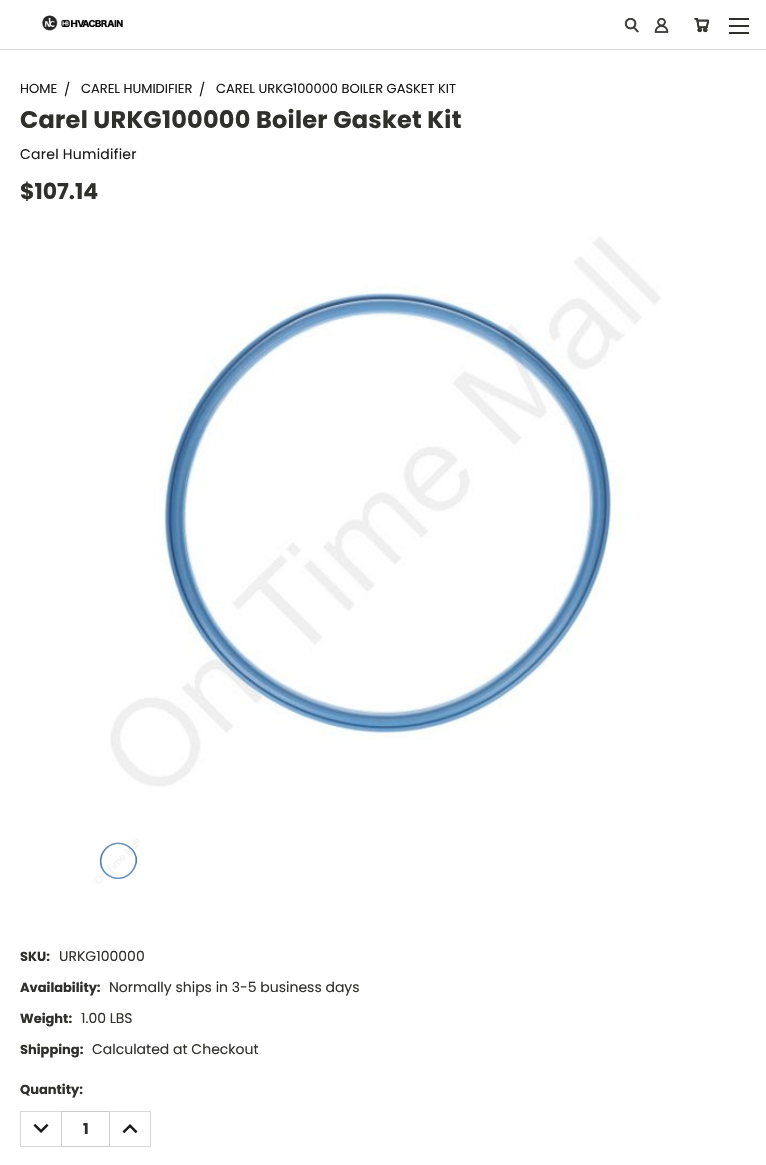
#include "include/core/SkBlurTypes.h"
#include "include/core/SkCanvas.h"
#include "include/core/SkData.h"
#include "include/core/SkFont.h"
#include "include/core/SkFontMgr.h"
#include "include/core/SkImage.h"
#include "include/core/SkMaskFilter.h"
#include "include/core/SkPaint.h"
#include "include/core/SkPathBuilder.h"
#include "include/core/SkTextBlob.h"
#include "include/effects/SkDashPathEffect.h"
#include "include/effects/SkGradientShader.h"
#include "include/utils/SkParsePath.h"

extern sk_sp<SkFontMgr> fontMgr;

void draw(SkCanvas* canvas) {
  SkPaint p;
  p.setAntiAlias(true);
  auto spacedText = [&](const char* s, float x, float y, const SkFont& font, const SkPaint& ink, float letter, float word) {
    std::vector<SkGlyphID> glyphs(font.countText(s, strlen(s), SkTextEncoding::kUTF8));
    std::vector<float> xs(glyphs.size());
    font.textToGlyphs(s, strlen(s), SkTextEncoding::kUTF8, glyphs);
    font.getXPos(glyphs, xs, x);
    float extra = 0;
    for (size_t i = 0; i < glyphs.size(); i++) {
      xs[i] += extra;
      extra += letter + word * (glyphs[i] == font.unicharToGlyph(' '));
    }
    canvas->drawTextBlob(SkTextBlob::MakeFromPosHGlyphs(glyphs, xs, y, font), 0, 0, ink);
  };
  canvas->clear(SK_ColorWHITE);
  p.setColor(SkColorSetRGB(215, 215, 215));
  canvas->drawRect(SkRect::MakeLTRB(0, 49, 766, 50), p);
  canvas->drawImageRect(SkImages::DeferredFromEncodedData(SkData::MakeFromFileName("images/1.png")), SkRect::MakeLTRB(42, 15, 123, 31), SkSamplingOptions());
  canvas->drawImageRect(SkImages::DeferredFromEncodedData(SkData::MakeFromFileName("images/2.png")), SkRect::MakeLTRB(624, 18, 639, 33), SkSamplingOptions());
  canvas->drawImageRect(SkImages::DeferredFromEncodedData(SkData::MakeFromFileName("images/3.png")), SkRect::MakeLTRB(654, 18, 669, 33), SkSamplingOptions());
  canvas->drawImageRect(SkImages::DeferredFromEncodedData(SkData::MakeFromFileName("images/4.png")), SkRect::MakeLTRB(694, 18, 709, 33), SkSamplingOptions());
  p.setColor(SkColorSetRGB(47, 47, 43));
  canvas->drawRect(SkRect::MakeLTRB(729, 25, 749, 27), p);
  canvas->drawRect(SkRect::MakeLTRB(729, 18, 749, 20), p);
  canvas->drawRect(SkRect::MakeLTRB(729, 32, 749, 34), p);
  canvas->drawImageRect(SkImages::DeferredFromEncodedData(SkData::MakeFromFileName("images/5.png")), SkRect::MakeLTRB(110, 236, 662, 787), SkSamplingOptions());
  canvas->drawImageRect(SkImages::DeferredFromEncodedData(SkData::MakeFromFileName("images/6.png")), SkRect::MakeLTRB(95, 838, 141, 884), SkSamplingOptions());
  p.setColor(SkColorSetRGB(215, 215, 215));
  canvas->drawRect(SkRect::MakeLTRB(20, 1111, 61, 1112), p);
  canvas->drawRect(SkRect::MakeLTRB(20, 1146, 61, 1147), p);
  canvas->drawRect(SkRect::MakeLTRB(20, 1111, 21, 1147), p);
  canvas->drawImageRect(SkImages::DeferredFromEncodedData(SkData::MakeFromFileName("images/7.png")), SkRect::MakeLTRB(33, 1123, 49, 1133), SkSamplingOptions());
  p.setStyle(SkPaint::kStroke_Style);
  p.setStrokeWidth(1);
  p.setColor(SkColorSetRGB(204, 204, 204));
  canvas->drawRect(SkRect::MakeLTRB(61.5f, 1111.5f, 109.5f, 1146.5f), p);
  p.setStyle(SkPaint::kFill_Style);
  p.setColor(SkColorSetRGB(215, 215, 215));
  canvas->drawRect(SkRect::MakeLTRB(110, 1111, 151, 1112), p);
  canvas->drawRect(SkRect::MakeLTRB(150, 1111, 151, 1147), p);
  canvas->drawRect(SkRect::MakeLTRB(110, 1146, 151, 1147), p);
  canvas->drawImageRect(SkImages::DeferredFromEncodedData(SkData::MakeFromFileName("images/8.png")), SkRect::MakeLTRB(122, 1124, 138, 1134), SkSamplingOptions());
  SkFont font1(fontMgr->matchFamilyStyle("Poppins", SkFontStyle::Normal()), 13);
  font1.setSubpixel(true);
  p.setColor(SkColorSetRGB(25, 25, 25));
  canvas->drawString("HOME", 20, 93, font1, p);
  canvas->drawString("/", 64, 94, font1, p);
  canvas->drawString("CAREL HUMIDIFIER", 81, 93, font1, p);
  canvas->drawString("/", 199, 94, font1, p);
  canvas->drawString("CAREL URKG100000 BOILER GASKET KIT", 216, 93, font1, p);
  SkFont font2(fontMgr->matchFamilyStyle("Poppins", SkFontStyle::Bold()), 24);
  font2.setSubpixel(true);
  p.setColor(SkColorSetRGB(47, 47, 43));
  spacedText("Carel URKG100000 Boiler Gasket Kit", 20, 128, font2, p, 0.25f, 0);
  SkFont font3(fontMgr->matchFamilyStyle("Poppins", SkFontStyle::Normal()), 14);
  font3.setSubpixel(true);
  p.setColor(SkColorSetRGB(25, 25, 25));
  spacedText("Carel Humidifier", 20, 159, font3, p, 0.25f, 0);
  SkFont font4(fontMgr->matchFamilyStyle("Poppins", SkFontStyle::Bold()), 22);
  font4.setSubpixel(true);
  p.setColor(SkColorSetRGB(47, 47, 43));
  canvas->drawString("$107.14", 20, 199, font4, p);
  SkFont font5(fontMgr->matchFamilyStyle("Poppins", SkFontStyle::Bold()), 13);
  font5.setSubpixel(true);
  canvas->drawString("SKU:", 20, 961, font5, p);
  canvas->drawString("URKG100000", 59, 961, font3, p);
  canvas->drawString("Availability:", 20, 992, font5, p);
  canvas->drawString("Normally ships in 3-5 business days", 109, 992, font3, p);
  canvas->drawString("Weight:", 20, 1023, font5, p);
  canvas->drawString("1.00 LBS", 81, 1023, font3, p);
  canvas->drawString("Shipping:", 20, 1054, font5, p);
  canvas->drawString("Calculated at Checkout", 92, 1054, font3, p);
  canvas->drawString("Quantity:", 20, 1094, font5, p);
  SkFont font6(fontMgr->matchFamilyStyle("Poppins", SkFontStyle::Bold()), 15);
  font6.setSubpixel(true);
  canvas->drawString("1", 83, 1134, font6, p);
}
